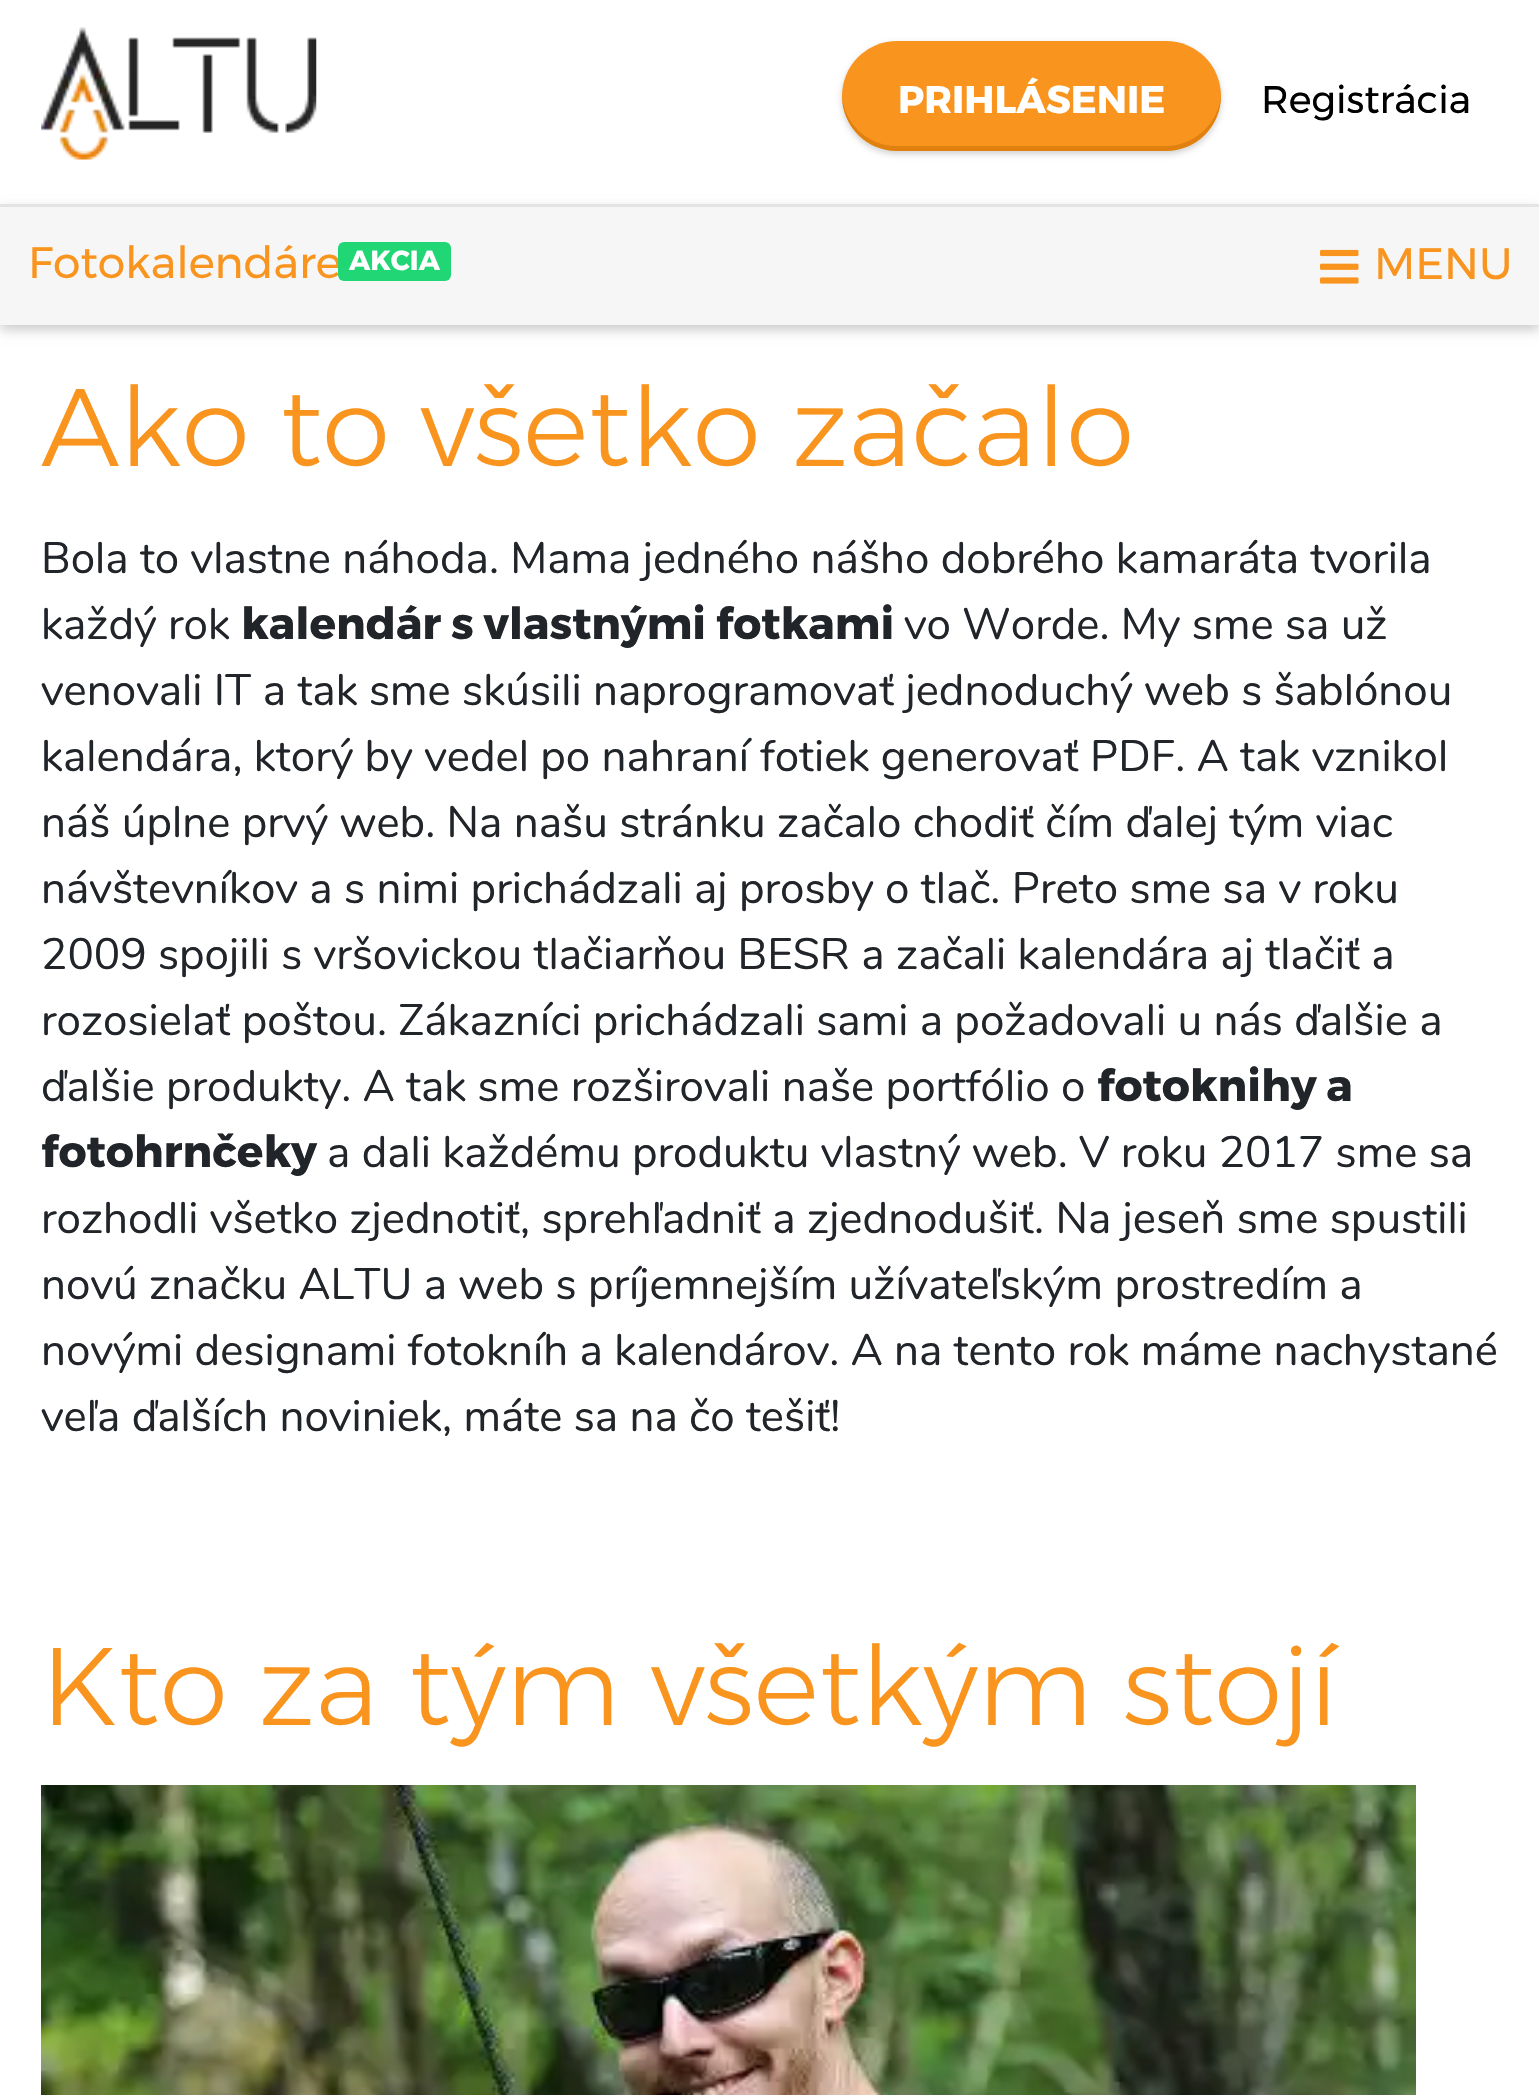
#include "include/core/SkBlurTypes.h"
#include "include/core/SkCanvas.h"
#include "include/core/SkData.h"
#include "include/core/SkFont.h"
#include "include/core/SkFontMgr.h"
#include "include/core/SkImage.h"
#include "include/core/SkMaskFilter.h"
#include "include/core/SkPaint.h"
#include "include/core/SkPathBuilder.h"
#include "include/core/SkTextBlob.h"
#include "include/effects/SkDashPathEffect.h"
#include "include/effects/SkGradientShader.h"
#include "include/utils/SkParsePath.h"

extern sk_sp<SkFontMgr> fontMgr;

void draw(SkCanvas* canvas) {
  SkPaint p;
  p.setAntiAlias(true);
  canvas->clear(SK_ColorWHITE);
  canvas->drawImageRect(SkImages::DeferredFromEncodedData(SkData::MakeFromFileName("images/1.png")), SkRect::MakeLTRB(41, 27, 317, 160), SkSamplingOptions());
  p.setColor(SkColorSetRGB(209, 209, 209));
  p.setMaskFilter(SkMaskFilter::MakeBlur(kNormal_SkBlurStyle, 3));
  canvas->drawRoundRect(SkRect::MakeLTRB(842, 44, 1221, 154), 55, 55, p);
  p.setMaskFilter(nullptr);
  p.setColor(SkColorSetRGB(249, 149, 31));
  canvas->drawRoundRect(SkRect::MakeLTRB(842, 41, 1221, 151), 55, 55, p);
  p.setColor(SkColorSetARGB(140, 204, 111, 0));
  canvas->drawPath(SkPathBuilder().moveTo(842, 94).lineTo(842, 96).cubicTo(842, 126, 867, 151, 897, 151).lineTo(1166, 151).cubicTo(1196, 151, 1221, 126, 1221, 96).lineTo(1221, 93).cubicTo(1220, 122, 1195, 146, 1166, 146).lineTo(896, 146).cubicTo(867, 146, 843, 122, 842, 94).close().detach(), p);
  p.setColor(SkColorSetARGB(51, 0, 0, 0));
  p.setMaskFilter(SkMaskFilter::MakeBlur(kNormal_SkBlurStyle, 5.5f));
  canvas->drawRect(SkRect::MakeLTRB(0, 209, 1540, 330), p);
  p.setMaskFilter(nullptr);
  p.setColor(SkColorSetRGB(246, 246, 246));
  canvas->drawRect(SkRect::MakeLTRB(0, 207, 1539, 325), p);
  p.setColor(SkColorSetRGB(228, 228, 228));
  canvas->drawRect(SkRect::MakeLTRB(0, 204, 1539, 207), p);
  canvas->drawImageRect(SkImages::DeferredFromEncodedData(SkData::MakeFromFileName("images/2.png")), SkRect::MakeLTRB(1320, 249, 1359, 284), SkSamplingOptions());
  canvas->drawImageRect(SkImages::DeferredFromEncodedData(SkData::MakeFromFileName("images/3.png")), SkRect::MakeLTRB(41, 1785, 1416, 2095), SkSamplingOptions());
  SkFont font1(fontMgr->matchFamilyStyle("Montserrat", SkFontStyle::Bold()), 38.5f);
  font1.setSubpixel(true);
  p.setColor(SK_ColorWHITE);
  canvas->drawString("PRIHLÁSENIE", 898, 113, font1, p);
  SkFont font2(fontMgr->matchFamilyStyle("Montserrat", SkFontStyle::Normal()), 38.5f);
  font2.setSubpixel(true);
  p.setColor(SK_ColorBLACK);
  canvas->drawString("Registrácia", 1261, 113, font2, p);
  SkFont font3(fontMgr->matchFamilyStyle("Montserrat", SkFontStyle::Normal()), 44);
  font3.setSubpixel(true);
  p.setColor(SkColorSetRGB(249, 149, 31));
  canvas->drawString("Fotokalendáre", 28, 278, font3, p);
  p.setColor(SkColorSetRGB(33, 214, 116));
  canvas->drawRoundRect(SkRect::MakeLTRB(338, 242, 451, 281), 6, 6, p);
  SkFont font4(fontMgr->matchFamilyStyle("Montserrat", SkFontStyle::Bold()), 27.5f);
  font4.setSubpixel(true);
  p.setColor(SK_ColorWHITE);
  canvas->drawString("AKCIA", 349, 270, font4, p);
  p.setColor(SkColorSetRGB(249, 149, 31));
  canvas->drawString("MENU", 1374, 279, font3, p);
  SkFont font5(fontMgr->matchFamilyStyle("Montserrat", SkFontStyle(300, SkFontStyle::kNormal_Width, SkFontStyle::kUpright_Slant)), 110);
  font5.setSubpixel(true);
  canvas->drawString("Ako to všetko začalo", 41, 466, font5, p);
  SkFont font6(fontMgr->matchFamilyStyle("Nunito", SkFontStyle::Normal()), 44);
  font6.setSubpixel(true);
  p.setColor(SkColorSetRGB(33, 37, 41));
  canvas->drawString("Bola to vlastne náhoda. Mama jedného nášho dobrého kamaráta tvorila", 41, 573, font6, p);
  canvas->drawString("každý rok", 41, 639, font6, p);
  SkFont font7(fontMgr->matchFamilyStyle("Montserrat", SkFontStyle::Bold()), 44);
  font7.setSubpixel(true);
  canvas->drawString("kalendár s vlastnými fotkami", 241, 639, font7, p);
  canvas->drawString("vo Worde. My sme sa už", 904, 639, font6, p);
  canvas->drawString("venovali IT a tak sme skúsili naprogramovať jednoduchý web s šablónou", 41, 705, font6, p);
  canvas->drawString("kalendára, ktorý by vedel po nahraní fotiek generovať PDF. A tak vznikol", 41, 771, font6, p);
  canvas->drawString("náš úplne prvý web. Na našu stránku začalo chodiť čím ďalej tým viac", 41, 837, font6, p);
  canvas->drawString("návštevníkov a s nimi prichádzali aj prosby o tlač. Preto sme sa v roku", 41, 903, font6, p);
  canvas->drawString("2009 spojili s vršovickou tlačiarňou BESR a začali kalendára aj tlačiť a", 41, 969, font6, p);
  canvas->drawString("rozosielať poštou. Zákazníci prichádzali sami a požadovali u nás ďalšie a", 41, 1035, font6, p);
  canvas->drawString("ďalšie produkty. A tak sme rozširovali naše portfólio o", 41, 1101, font6, p);
  canvas->drawString("fotoknihy a", 1097, 1101, font7, p);
  canvas->drawString("fotohrnčeky", 41, 1167, font7, p);
  canvas->drawString("a dali každému produktu vlastný web. V roku 2017 sme sa", 327, 1167, font6, p);
  canvas->drawString("rozhodli všetko zjednotiť, sprehľadniť a zjednodušiť. Na jeseň sme spustili", 41, 1233, font6, p);
  canvas->drawString("novú značku ALTU a web s príjemnejším užívateľským prostredím a", 41, 1299, font6, p);
  canvas->drawString("novými designami fotokníh a kalendárov. A na tento rok máme nachystané", 41, 1365, font6, p);
  canvas->drawString("veľa ďalších noviniek, máte sa na čo tešiť!", 41, 1431, font6, p);
  p.setColor(SkColorSetRGB(249, 149, 31));
  canvas->drawString("Kto za tým všetkým stojí", 41, 1725, font5, p);
}
